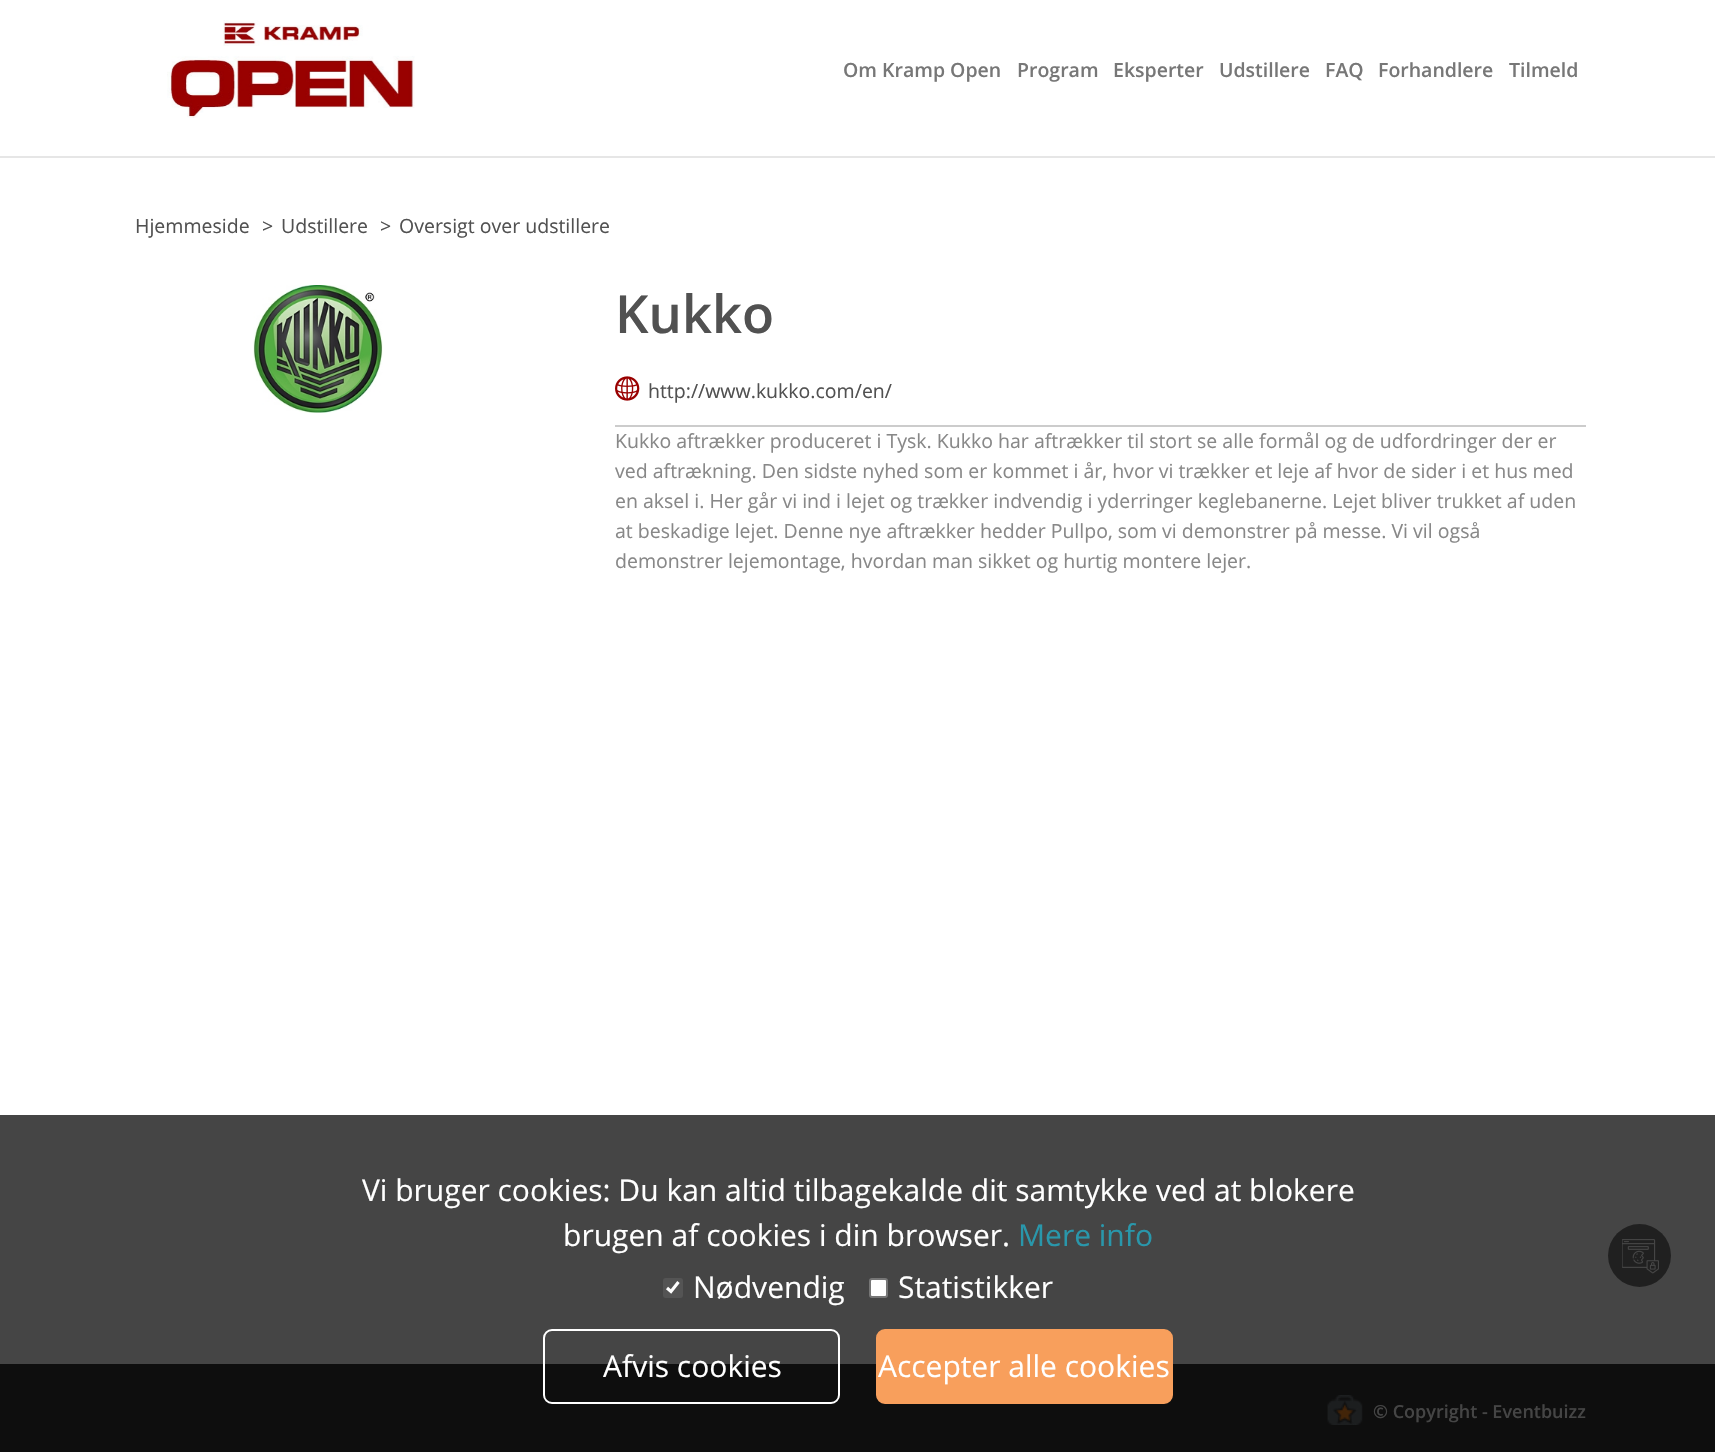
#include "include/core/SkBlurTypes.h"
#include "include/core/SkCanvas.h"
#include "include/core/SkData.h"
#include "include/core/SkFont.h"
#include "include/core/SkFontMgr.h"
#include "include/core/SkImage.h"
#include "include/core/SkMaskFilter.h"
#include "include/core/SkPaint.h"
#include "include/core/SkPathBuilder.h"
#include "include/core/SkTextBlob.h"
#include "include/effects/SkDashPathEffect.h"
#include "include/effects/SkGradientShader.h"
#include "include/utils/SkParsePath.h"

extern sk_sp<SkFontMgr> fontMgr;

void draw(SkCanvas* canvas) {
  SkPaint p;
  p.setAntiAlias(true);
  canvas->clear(SK_ColorWHITE);
  p.setColor(SkColorSetRGB(69, 69, 69));
  canvas->drawRect(SkRect::MakeLTRB(0, 1115, 1715, 1364), p);
  p.setColor(SkColorSetRGB(230, 230, 230));
  canvas->drawRect(SkRect::MakeLTRB(0, 156, 1715, 158), p);
  canvas->drawImageRect(SkImages::DeferredFromEncodedData(SkData::MakeFromFileName("images/1.png")), SkRect::MakeLTRB(167, 20, 415, 118), SkSamplingOptions());
  canvas->drawImageRect(SkImages::DeferredFromEncodedData(SkData::MakeFromFileName("images/2.png")), SkRect::MakeLTRB(253, 285, 383, 413), SkSamplingOptions());
  p.setColor(SkColorSetRGB(204, 204, 204));
  canvas->drawRect(SkRect::MakeLTRB(615, 425, 1586, 427), p);
  canvas->drawImageRect(SkImages::DeferredFromEncodedData(SkData::MakeFromFileName("images/3.png")), SkRect::MakeLTRB(615, 376, 640, 401), SkSamplingOptions());
  p.setColor(SkColorSetRGB(84, 84, 84));
  canvas->drawRoundRect(SkRect::MakeLTRB(663, 1278, 683, 1298), 3, 3, p);
  p.setStyle(SkPaint::kStroke_Style);
  p.setStrokeWidth(3.1f);
  p.setColor(SK_ColorWHITE);
  canvas->drawPath(SkPathBuilder().moveTo(667, 1288).lineTo(671, 1291.5f).lineTo(678.5f, 1282).detach(), p);
  p.setStyle(SkPaint::kFill_Style);
  canvas->drawRoundRect(SkRect::MakeLTRB(870, 1279, 887, 1297), 2, 2, p);
  p.setStyle(SkPaint::kStroke_Style);
  p.setStrokeWidth(2);
  p.setColor(SkColorSetRGB(118, 118, 118));
  canvas->drawRoundRect(SkRect::MakeLTRB(870, 1279, 887, 1297), 2, 2, p);
  p.setStyle(SkPaint::kFill_Style);
  p.setColor(SkColorSetRGB(14, 14, 14));
  canvas->drawRect(SkRect::MakeLTRB(0, 1364, 1715, 1452), p);
  p.setStyle(SkPaint::kStroke_Style);
  p.setColor(SK_ColorWHITE);
  canvas->drawRoundRect(SkRect::MakeLTRB(544, 1330, 839, 1403), 8, 8, p);
  p.setStyle(SkPaint::kFill_Style);
  p.setColor(SkColorSetRGB(248, 159, 92));
  canvas->drawRoundRect(SkRect::MakeLTRB(877, 1330, 1172, 1403), 8, 8, p);
  p.setStyle(SkPaint::kStroke_Style);
  canvas->drawRoundRect(SkRect::MakeLTRB(877, 1330, 1172, 1403), 8, 8, p);
  p.setStyle(SkPaint::kFill_Style);
  p.setColor(SkColorSetRGB(32, 32, 32));
  canvas->drawCircle(1639.5f, 1255.5f, 31.5f, p);
  canvas->drawImageRect(SkImages::DeferredFromEncodedData(SkData::MakeFromFileName("images/4.png")), SkRect::MakeLTRB(1622, 1239, 1659, 1274), SkSamplingOptions());
  canvas->drawImageRect(SkImages::DeferredFromEncodedData(SkData::MakeFromFileName("images/5.png")), SkRect::MakeLTRB(1327, 1395, 1363, 1425), SkSamplingOptions());
  SkFont font1(fontMgr->matchFamilyStyle("Open Sans", SkFontStyle(600, SkFontStyle::kNormal_Width, SkFontStyle::kUpright_Slant)), 19.5f);
  font1.setSubpixel(true);
  p.setColor(SkColorSetRGB(119, 119, 119));
  canvas->drawString("Om Kramp Open", 843, 77, font1, p);
  canvas->drawString("Program", 1017, 77, font1, p);
  canvas->drawString("Eksperter", 1113, 77, font1, p);
  canvas->drawString("Udstillere", 1219, 77, font1, p);
  canvas->drawString("FAQ", 1325, 77, font1, p);
  canvas->drawString("Forhandlere", 1378, 77, font1, p);
  canvas->drawString("Tilmeld", 1509, 77, font1, p);
  SkFont font2(fontMgr->matchFamilyStyle("Open Sans", SkFontStyle::Normal()), 19.5f);
  font2.setSubpixel(true);
  p.setColor(SkColorSetRGB(81, 81, 81));
  canvas->drawString("Hjemmeside", 135, 233, font2, p);
  canvas->drawString(">", 262, 233, font2, p);
  canvas->drawString("Udstillere", 281, 233, font2, p);
  canvas->drawString(">", 380, 233, font2, p);
  canvas->drawString("Oversigt over udstillere", 399, 233, font2, p);
  SkFont font3(fontMgr->matchFamilyStyle("Open Sans", SkFontStyle(600, SkFontStyle::kNormal_Width, SkFontStyle::kUpright_Slant)), 52.5f);
  font3.setSubpixel(true);
  canvas->drawString("Kukko", 615, 333, font3, p);
  canvas->drawString("http://www.kukko.com/en/", 648, 398, font2, p);
  p.setColor(SkColorSetRGB(136, 136, 136));
  canvas->drawString("Kukko aftrækker produceret i Tysk. Kukko har aftrækker til stort se alle formål og de udfordringer der er", 615, 448, font2, p);
  canvas->drawString("ved aftrækning. Den sidste nyhed som er kommet i år, hvor vi trækker et leje af hvor de sider i et hus med", 615, 478, font2, p);
  canvas->drawString("en aksel i. Her går vi ind i lejet og trækker indvendig i yderringer keglebanerne. Lejet bliver trukket af uden", 615, 508, font2, p);
  canvas->drawString("at beskadige lejet. Denne nye aftrækker hedder Pullpo, som vi demonstrer på messe. Vi vil også", 615, 538, font2, p);
  canvas->drawString("demonstrer lejemontage, hvordan man sikket og hurtig montere lejer.", 615, 568, font2, p);
  SkFont font4(fontMgr->matchFamilyStyle("Open Sans", SkFontStyle::Normal()), 30);
  font4.setSubpixel(true);
  p.setColor(SK_ColorWHITE);
  canvas->drawString("Vi bruger cookies: Du kan altid tilbagekalde dit samtykke ved at blokere", 362, 1201, font4, p);
  canvas->drawString("brugen af cookies i din browser.", 563, 1246, font4, p);
  p.setColor(SkColorSetRGB(41, 151, 171));
  canvas->drawString("Mere info", 1018, 1246, font4, p);
  p.setColor(SK_ColorWHITE);
  canvas->drawString("Nødvendig", 693, 1298, font4, p);
  canvas->drawString("Statistikker", 898, 1298, font4, p);
  canvas->drawString("Afvis cookies", 603, 1377, font4, p);
  canvas->drawString("Accepter alle cookies", 878, 1377, font4, p);
  SkFont font5(fontMgr->matchFamilyStyle("Open Sans", SkFontStyle(600, SkFontStyle::kNormal_Width, SkFontStyle::kUpright_Slant)), 18);
  font5.setSubpixel(true);
  p.setColor(SkColorSetRGB(69, 69, 69));
  canvas->drawString("© Copyright - Eventbuizz", 1373, 1418, font5, p);
}
